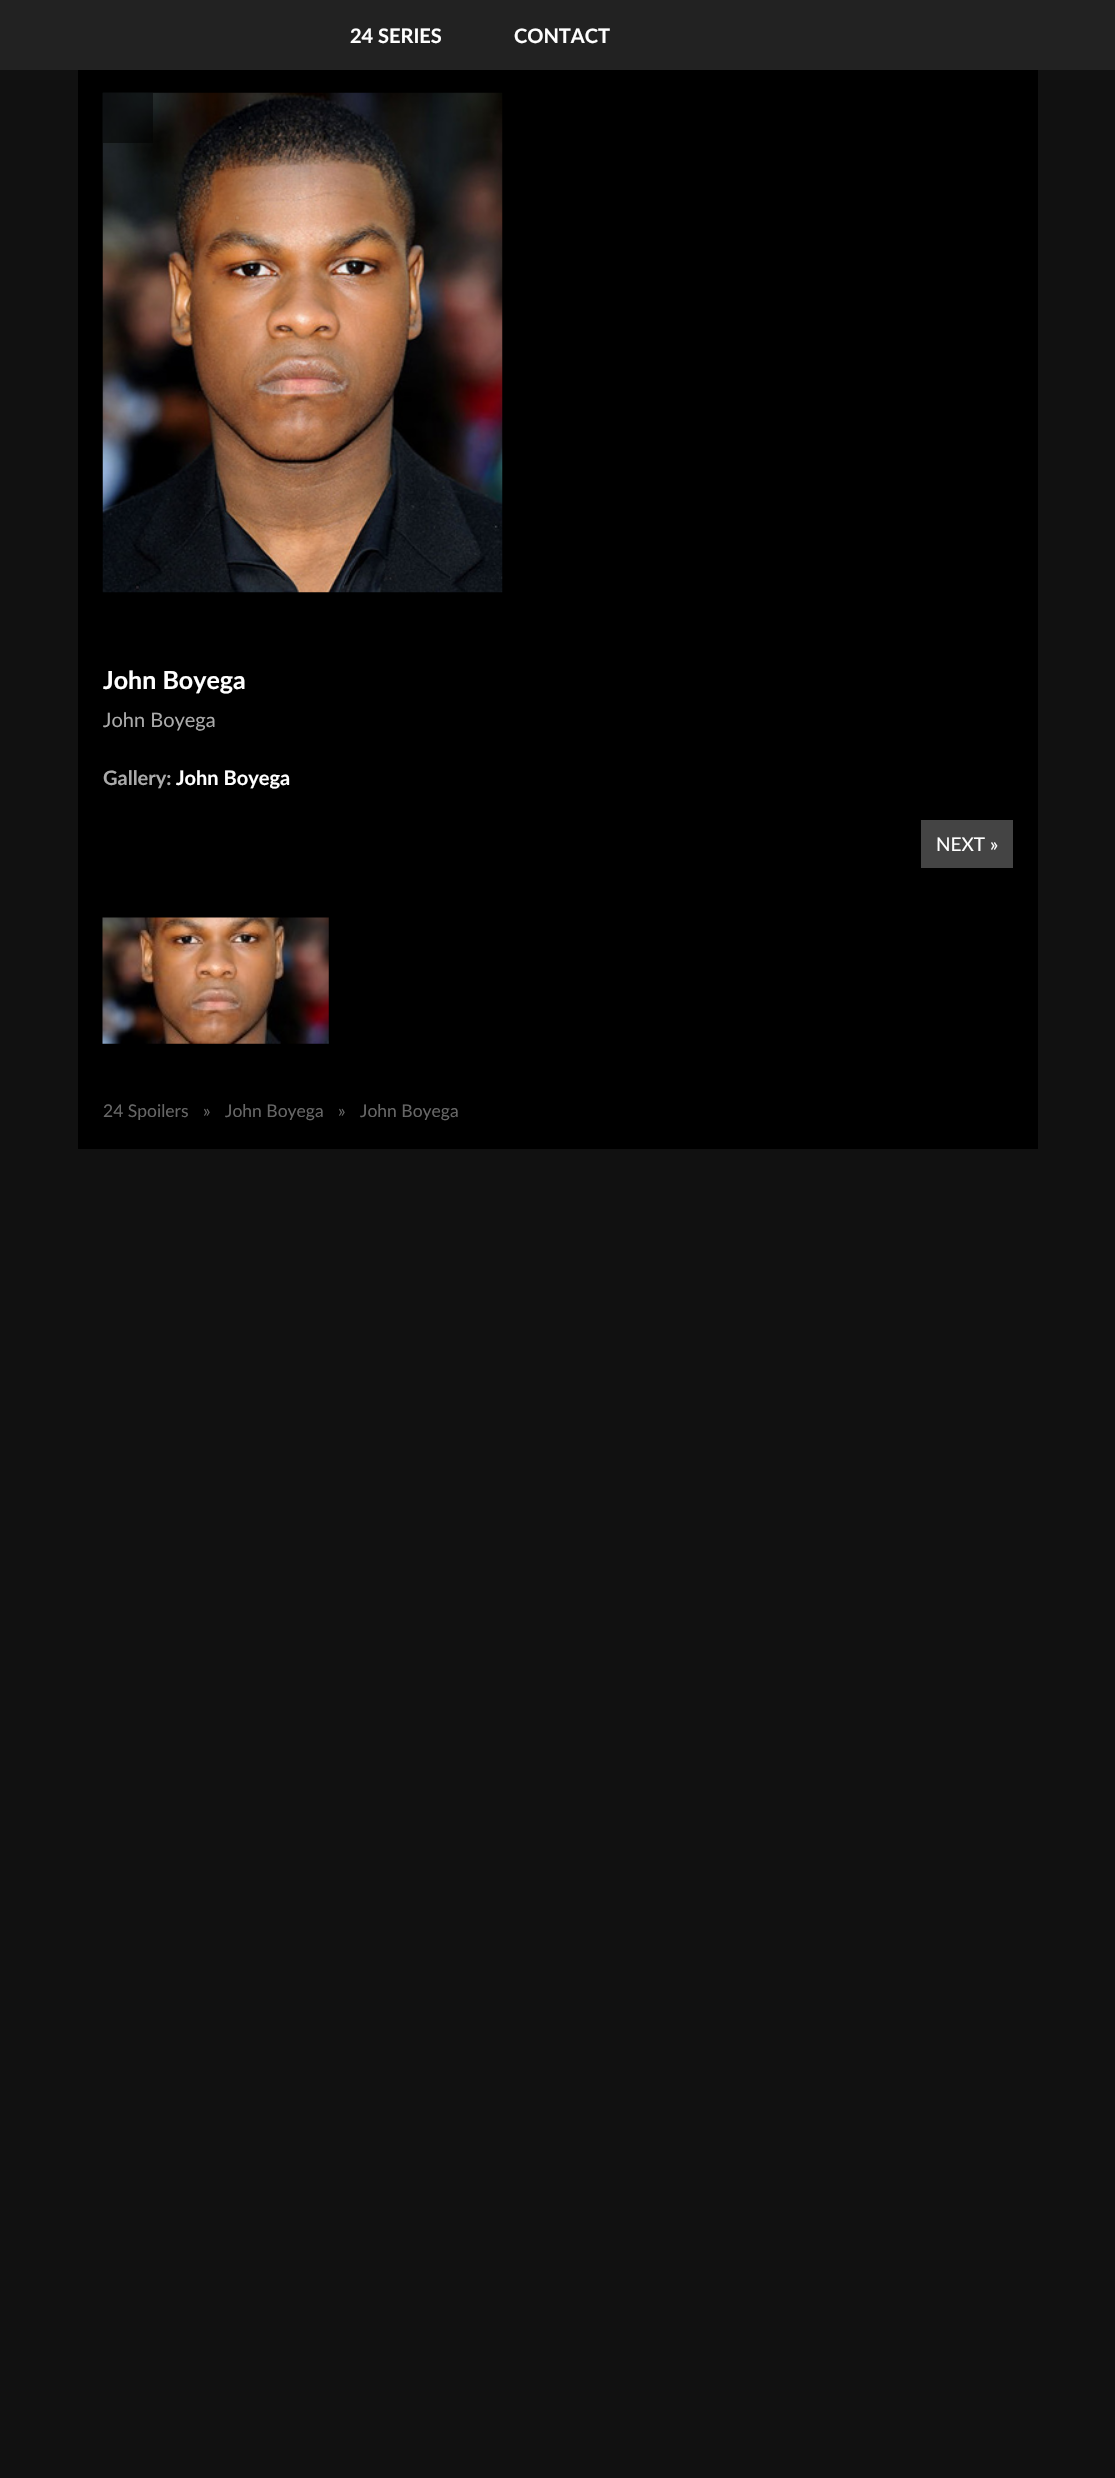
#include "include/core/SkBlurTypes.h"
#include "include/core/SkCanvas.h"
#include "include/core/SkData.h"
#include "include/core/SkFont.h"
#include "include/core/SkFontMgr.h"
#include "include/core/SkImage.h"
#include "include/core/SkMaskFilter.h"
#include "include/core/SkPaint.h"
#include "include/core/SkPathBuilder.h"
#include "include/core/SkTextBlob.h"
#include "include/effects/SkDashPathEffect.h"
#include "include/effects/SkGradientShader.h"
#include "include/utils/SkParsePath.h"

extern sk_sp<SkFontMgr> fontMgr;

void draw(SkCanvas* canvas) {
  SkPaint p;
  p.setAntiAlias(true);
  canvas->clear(SkColorSetRGB(17, 17, 17));
  p.setColor(SkColorSetRGB(34, 34, 34));
  canvas->drawRect(SkRect::MakeLTRB(0, 0, 1115, 70), p);
  p.setColor(SK_ColorBLACK);
  canvas->drawRect(SkRect::MakeLTRB(78, 70, 1038, 1149), p);
  canvas->drawImageRect(SkImages::DeferredFromEncodedData(SkData::MakeFromFileName("images/1.png")), SkRect::MakeLTRB(102, 92, 503, 593), SkSamplingOptions());
  p.setColor(SkColorSetARGB(128, 0, 0, 0));
  canvas->drawRect(SkRect::MakeLTRB(103, 93, 153, 143), p);
  p.setColor(SkColorSetRGB(68, 68, 68));
  canvas->drawRect(SkRect::MakeLTRB(921, 820, 1013, 868), p);
  canvas->drawImageRect(SkImages::DeferredFromEncodedData(SkData::MakeFromFileName("images/2.png")), SkRect::MakeLTRB(102, 917, 329, 1044), SkSamplingOptions());
  SkFont font1(fontMgr->matchFamilyStyle("Lato", SkFontStyle::Bold()), 20);
  font1.setSubpixel(true);
  p.setColor(SK_ColorWHITE);
  canvas->drawString("24 SERIES", 350, 43, font1, p);
  canvas->drawString("CONTACT", 514, 43, font1, p);
  SkFont font2(fontMgr->matchFamilyStyle("Lato", SkFontStyle::Bold()), 25);
  font2.setSubpixel(true);
  canvas->drawString("John Boyega", 103, 689, font2, p);
  SkFont font3(fontMgr->matchFamilyStyle("Lato", SkFontStyle::Normal()), 20);
  font3.setSubpixel(true);
  p.setColor(SkColorSetRGB(170, 170, 170));
  canvas->drawString("John Boyega", 103, 727, font3, p);
  canvas->drawString("Gallery:", 103, 785, font1, p);
  p.setColor(SK_ColorWHITE);
  canvas->drawString("John Boyega", 176, 785, font1, p);
  SkFont font4(fontMgr->matchFamilyStyle("Lato", SkFontStyle::Normal()), 19);
  font4.setSubpixel(true);
  canvas->drawString("NEXT »", 936, 851, font4, p);
  SkFont font5(fontMgr->matchFamilyStyle("Lato", SkFontStyle::Normal()), 17.5f);
  font5.setSubpixel(true);
  p.setColor(SkColorSetRGB(102, 102, 102));
  canvas->drawString("24 Spoilers", 103, 1117, font5, p);
  canvas->drawString("»", 203, 1117, font5, p);
  canvas->drawString("John Boyega", 225, 1117, font5, p);
  canvas->drawString("»", 338, 1117, font5, p);
  canvas->drawString("John Boyega", 360, 1117, font5, p);
}
